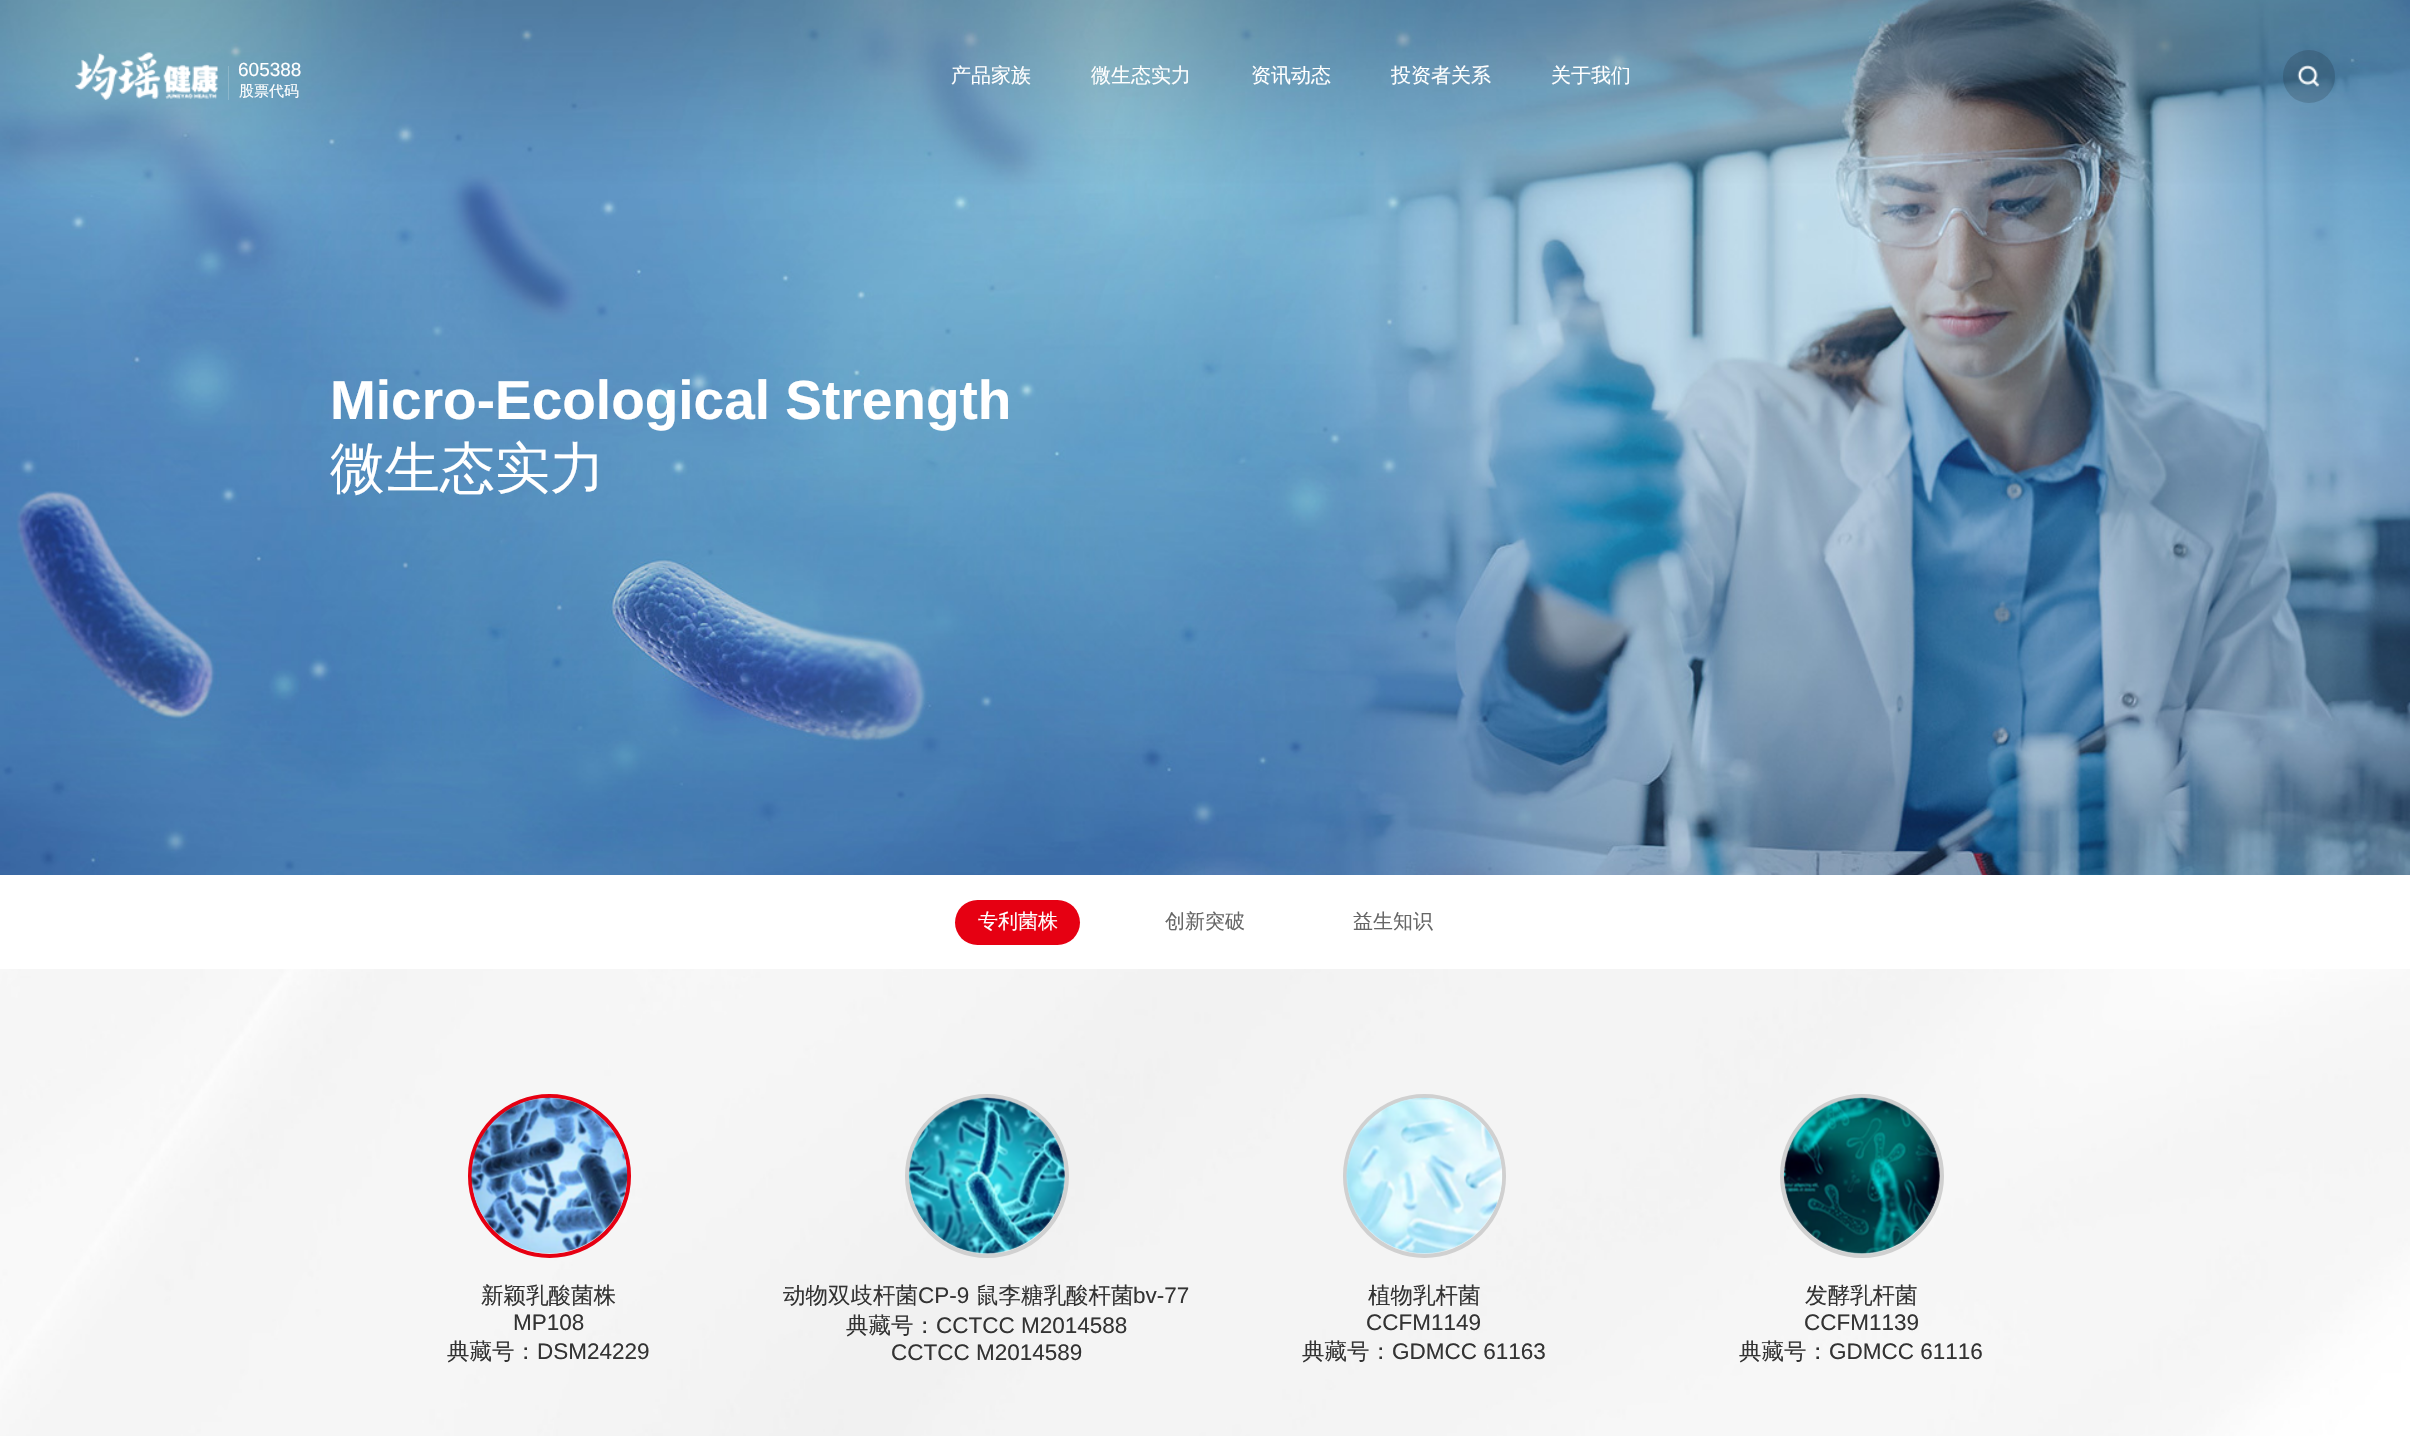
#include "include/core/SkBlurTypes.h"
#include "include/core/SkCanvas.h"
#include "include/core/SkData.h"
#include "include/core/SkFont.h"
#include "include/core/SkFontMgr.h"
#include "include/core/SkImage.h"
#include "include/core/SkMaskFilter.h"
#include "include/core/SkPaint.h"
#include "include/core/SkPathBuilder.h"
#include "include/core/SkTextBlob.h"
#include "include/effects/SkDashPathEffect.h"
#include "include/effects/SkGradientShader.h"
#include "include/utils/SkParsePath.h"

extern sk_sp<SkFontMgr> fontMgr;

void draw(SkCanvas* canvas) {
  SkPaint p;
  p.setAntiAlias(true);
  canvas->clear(SK_ColorWHITE);
  canvas->drawImageRect(SkImages::DeferredFromEncodedData(SkData::MakeFromFileName("images/3.png")), SkRect::MakeLTRB(0, 0, 2410, 875), SkSamplingOptions());
  canvas->drawImageRect(SkImages::DeferredFromEncodedData(SkData::MakeFromFileName("images/1.png")), SkRect::MakeLTRB(75, 52, 218, 100), SkSamplingOptions());
  p.setColor(SkColorSetARGB(51, 255, 255, 255));
  canvas->drawRect(SkRect::MakeLTRB(228, 66, 229, 100), p);
  p.setColor(SkColorSetARGB(38, 0, 0, 0));
  canvas->drawRoundRect(SkRect::MakeLTRB(2283, 50, 2335, 103), 26, 26, p);
  canvas->drawImageRect(SkImages::DeferredFromEncodedData(SkData::MakeFromFileName("images/2.png")), SkRect::MakeLTRB(2297, 65, 2320, 87), SkSamplingOptions());
  p.setColor(SkColorSetRGB(230, 0, 18));
  canvas->drawRoundRect(SkRect::MakeLTRB(955, 900, 1080, 945), 22.5f, 22.5f, p);
  canvas->drawImageRect(SkImages::DeferredFromEncodedData(SkData::MakeFromFileName("images/4.png")), SkRect::MakeLTRB(0, 969, 2410, 1436), SkSamplingOptions());
  p.setStyle(SkPaint::kStroke_Style);
  p.setStrokeWidth(4);
  canvas->drawRoundRect(SkRect::MakeLTRB(470, 1096, 629, 1256), 79.5f, 79.5f, p);
  canvas->drawImageRect(SkImages::DeferredFromEncodedData(SkData::MakeFromFileName("images/5.png")), SkRect::MakeLTRB(471, 1097, 628, 1254), SkSamplingOptions());
  p.setColor(SkColorSetRGB(208, 208, 208));
  canvas->drawCircle(987, 1176, 80, p);
  canvas->drawImageRect(SkImages::DeferredFromEncodedData(SkData::MakeFromFileName("images/6.png")), SkRect::MakeLTRB(908, 1097, 1065, 1254), SkSamplingOptions());
  canvas->drawRoundRect(SkRect::MakeLTRB(1345, 1096, 1504, 1256), 79.5f, 79.5f, p);
  canvas->drawImageRect(SkImages::DeferredFromEncodedData(SkData::MakeFromFileName("images/7.png")), SkRect::MakeLTRB(1346, 1097, 1503, 1254), SkSamplingOptions());
  canvas->drawCircle(1862, 1176, 80, p);
  canvas->drawImageRect(SkImages::DeferredFromEncodedData(SkData::MakeFromFileName("images/8.png")), SkRect::MakeLTRB(1783, 1097, 1940, 1254), SkSamplingOptions());
  SkFont font1(fontMgr->matchFamilyStyle("Liberation Sans", SkFontStyle::Normal()), 19);
  font1.setSubpixel(true);
  p.setStyle(SkPaint::kFill_Style);
  p.setColor(SK_ColorWHITE);
  canvas->drawString("605388", 238, 76, font1, p);
  SkFont font2(fontMgr->matchFamilyStyle("WenQuanYi Zen Hei", SkFontStyle(500, SkFontStyle::kNormal_Width, SkFontStyle::kUpright_Slant)), 15);
  font2.setSubpixel(true);
  canvas->drawString("股票代码", 239, 96, font2, p);
  SkFont font3(fontMgr->matchFamilyStyle("WenQuanYi Zen Hei", SkFontStyle(500, SkFontStyle::kNormal_Width, SkFontStyle::kUpright_Slant)), 20);
  font3.setSubpixel(true);
  canvas->drawString("产品家族", 951, 82, font3, p);
  canvas->drawString("微生态实力", 1091, 82, font3, p);
  canvas->drawString("资讯动态", 1251, 82, font3, p);
  canvas->drawString("投资者关系", 1391, 82, font3, p);
  canvas->drawString("关于我们", 1551, 82, font3, p);
  SkFont font4(fontMgr->matchFamilyStyle("Liberation Sans", SkFontStyle::Bold()), 55);
  font4.setSubpixel(true);
  canvas->drawString("Micro-Ecological Strength", 330, 419, font4, p);
  SkFont font5(fontMgr->matchFamilyStyle("WenQuanYi Zen Hei", SkFontStyle(500, SkFontStyle::kNormal_Width, SkFontStyle::kUpright_Slant)), 55);
  font5.setSubpixel(true);
  canvas->drawString("微生态实力", 330, 487, font5, p);
  canvas->drawString("专利菌株", 978, 928, font3, p);
  p.setColor(SkColorSetRGB(102, 102, 102));
  canvas->drawString("创新突破", 1165, 928, font3, p);
  canvas->drawString("益生知识", 1353, 928, font3, p);
  SkFont font6(fontMgr->matchFamilyStyle("WenQuanYi Zen Hei", SkFontStyle(500, SkFontStyle::kNormal_Width, SkFontStyle::kUpright_Slant)), 22.5f);
  font6.setSubpixel(true);
  p.setColor(SkColorSetRGB(51, 51, 51));
  canvas->drawString("新颖乳酸菌株", 481, 1303, font6, p);
  SkFont font7(fontMgr->matchFamilyStyle("Liberation Sans", SkFontStyle::Normal()), 22.5f);
  font7.setSubpixel(true);
  canvas->drawString("MP108", 513, 1330, font7, p);
  canvas->drawString("典藏号：", 447, 1359, font6, p);
  canvas->drawString("DSM24229", 537, 1359, font7, p);
  canvas->drawString("动物双歧杆菌", 783, 1303, font6, p);
  canvas->drawString("CP-9", 918, 1303, font7, p);
  canvas->drawString("鼠李糖乳酸杆菌", 976, 1303, font6, p);
  canvas->drawString("bv-77", 1133, 1303, font7, p);
  canvas->drawString("典藏号：", 846, 1333, font6, p);
  canvas->drawString("CCTCC M2014588", 936, 1333, font7, p);
  canvas->drawString("CCTCC M2014589", 891, 1360, font7, p);
  canvas->drawString("植物乳杆菌", 1368, 1303, font6, p);
  canvas->drawString("CCFM1149", 1366, 1330, font7, p);
  canvas->drawString("典藏号：", 1302, 1359, font6, p);
  canvas->drawString("GDMCC 61163", 1392, 1359, font7, p);
  canvas->drawString("发酵乳杆菌", 1805, 1303, font6, p);
  canvas->drawString("CCFM1139", 1804, 1330, font7, p);
  canvas->drawString("典藏号：", 1739, 1359, font6, p);
  canvas->drawString("GDMCC 61116", 1829, 1359, font7, p);
}
